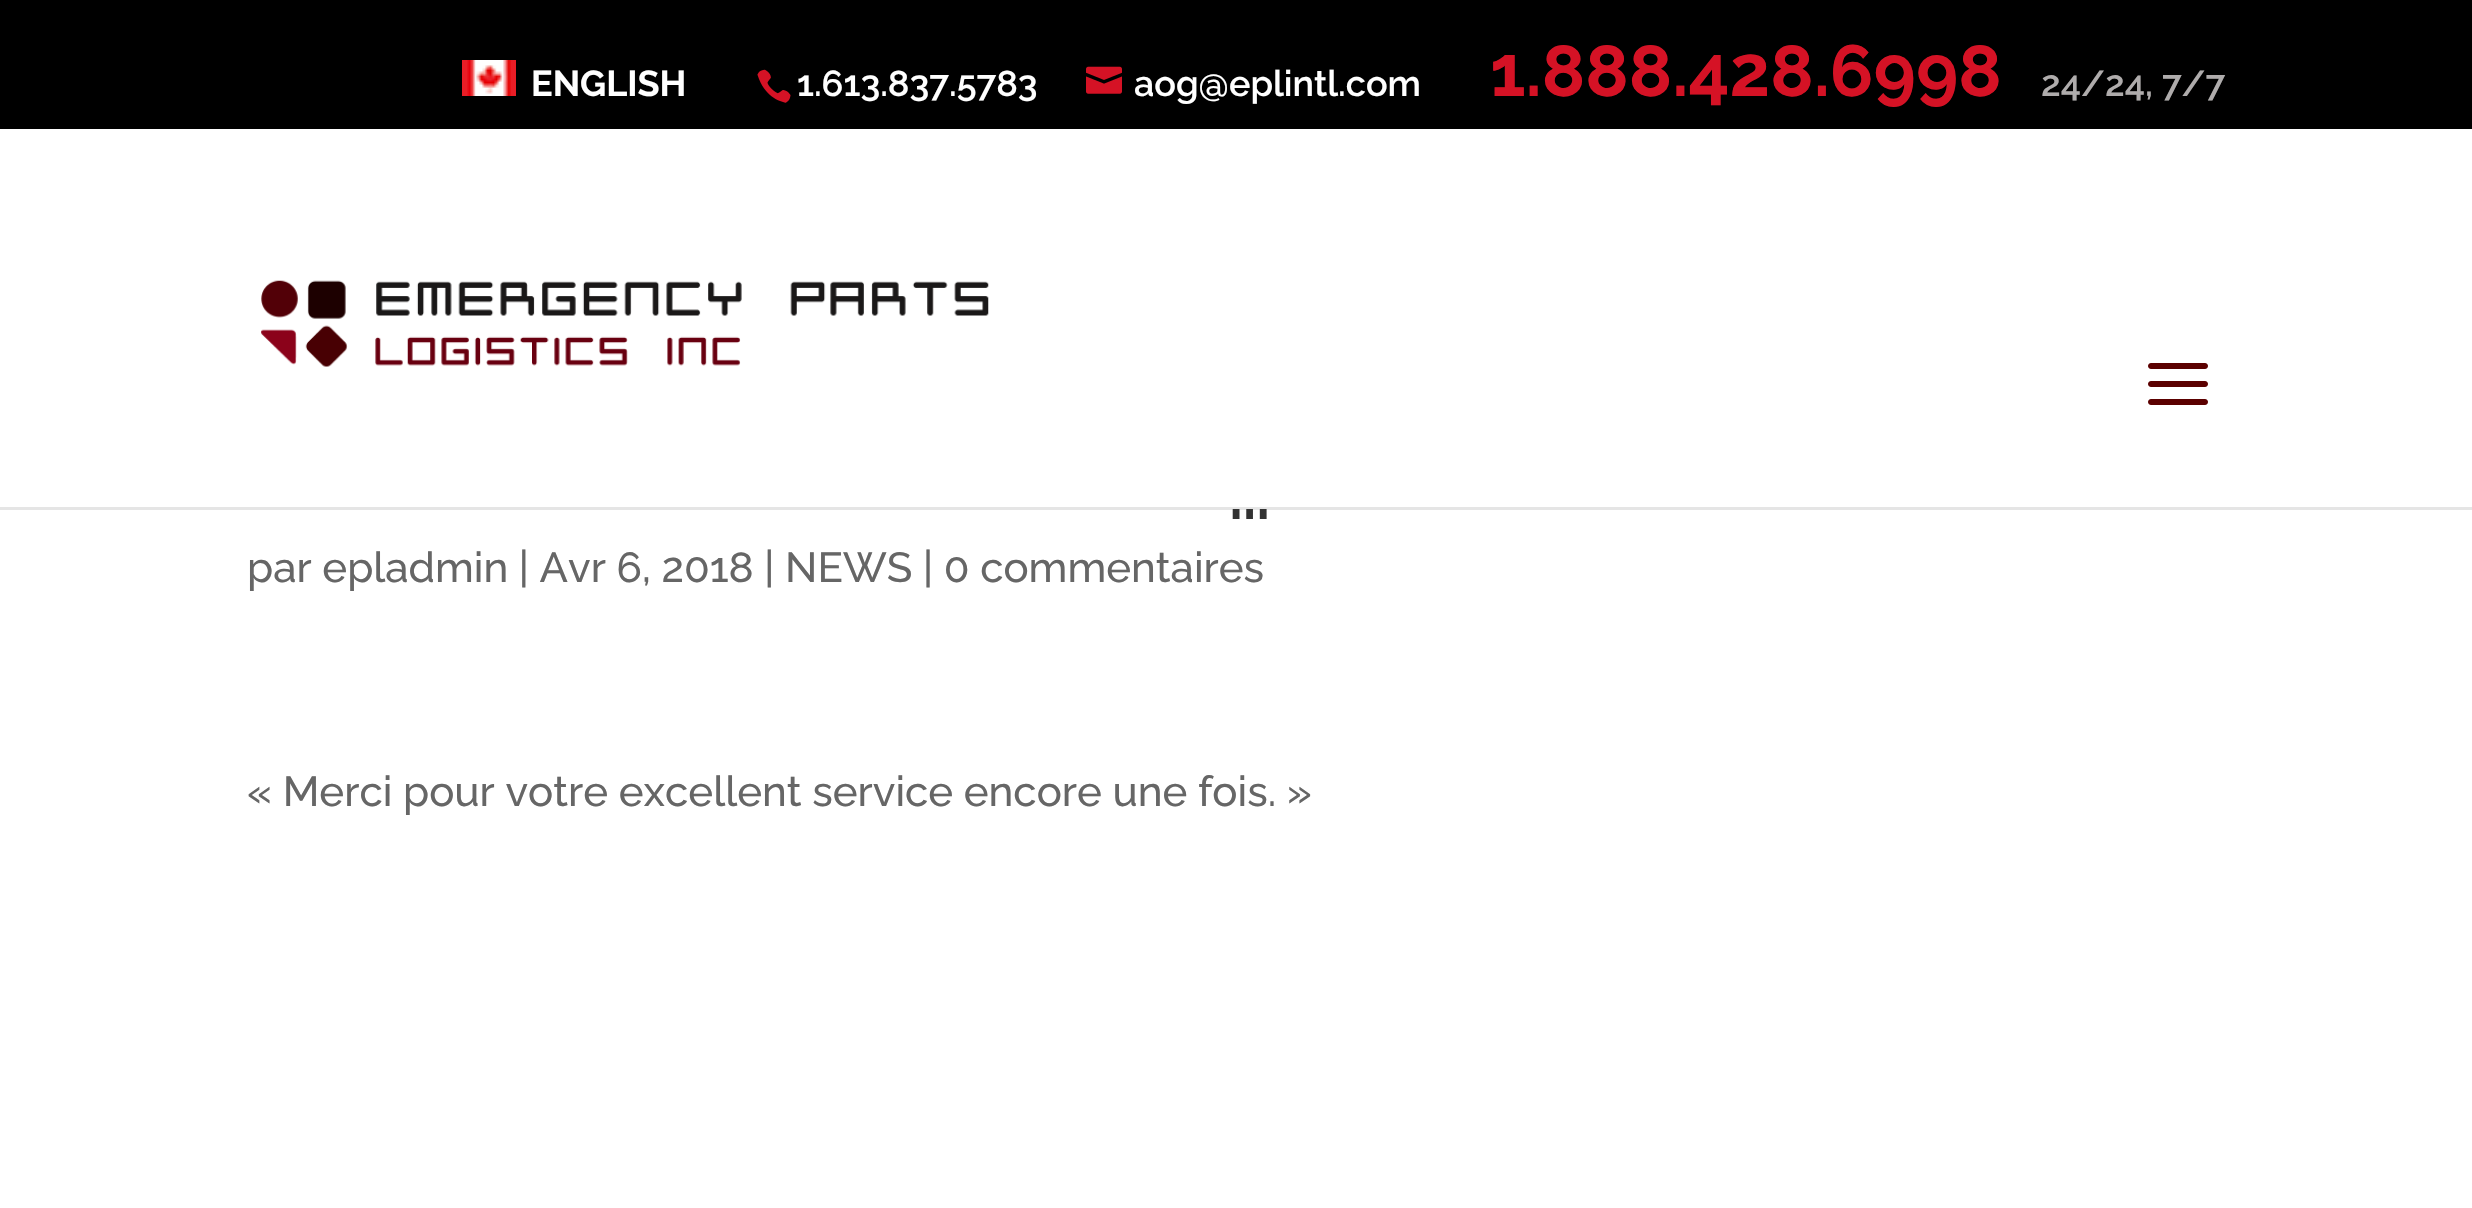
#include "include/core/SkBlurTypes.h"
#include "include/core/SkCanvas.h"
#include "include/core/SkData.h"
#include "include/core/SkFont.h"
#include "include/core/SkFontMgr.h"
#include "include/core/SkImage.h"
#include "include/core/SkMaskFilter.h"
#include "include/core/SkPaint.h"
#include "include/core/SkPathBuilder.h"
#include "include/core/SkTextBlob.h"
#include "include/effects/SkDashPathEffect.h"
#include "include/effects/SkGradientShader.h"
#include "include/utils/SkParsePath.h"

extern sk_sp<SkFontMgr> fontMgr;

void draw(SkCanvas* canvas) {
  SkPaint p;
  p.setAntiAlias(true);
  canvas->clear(SK_ColorWHITE);
  p.setColor(SK_ColorBLACK);
  canvas->drawRect(SkRect::MakeLTRB(0, 0, 2472, 129), p);
  canvas->drawImageRect(SkImages::DeferredFromEncodedData(SkData::MakeFromFileName("images/1.png")), SkRect::MakeLTRB(462, 60, 516, 96), SkSamplingOptions());
  canvas->drawImageRect(SkImages::DeferredFromEncodedData(SkData::MakeFromFileName("images/2.png")), SkRect::MakeLTRB(757, 69, 791, 103), SkSamplingOptions());
  canvas->drawImageRect(SkImages::DeferredFromEncodedData(SkData::MakeFromFileName("images/3.png")), SkRect::MakeLTRB(1086, 66, 1122, 94), SkSamplingOptions());
  p.setColor(SkColorSetARGB(26, 0, 0, 0));
  canvas->drawRect(SkRect::MakeLTRB(0, 507, 2472, 510), p);
  canvas->drawImageRect(SkImages::DeferredFromEncodedData(SkData::MakeFromFileName("images/4.png")), SkRect::MakeLTRB(261, 280, 989, 367), SkSamplingOptions());
  canvas->drawImageRect(SkImages::DeferredFromEncodedData(SkData::MakeFromFileName("images/5.png")), SkRect::MakeLTRB(2148, 363, 2208, 405), SkSamplingOptions());
  SkFont font1(fontMgr->matchFamilyStyle("Raleway", SkFontStyle::Bold()), 36);
  font1.setSubpixel(true);
  p.setColor(SK_ColorWHITE);
  canvas->drawString("ENGLISH", 531, 96, font1, p);
  SkFont font2(fontMgr->matchFamilyStyle("Raleway", SkFontStyle(600, SkFontStyle::kNormal_Width, SkFontStyle::kUpright_Slant)), 36);
  font2.setSubpixel(true);
  canvas->drawString("1.613.837.5783", 797, 96, font2, p);
  canvas->drawString("aog@eplintl.com", 1134, 96, font2, p);
  SkFont font3(fontMgr->matchFamilyStyle("Raleway", SkFontStyle::Bold()), 72);
  font3.setSubpixel(true);
  p.setColor(SkColorSetRGB(213, 18, 37));
  canvas->drawString("1.888.428.6998", 1490, 96, font3, p);
  p.setColor(SkColorSetRGB(175, 172, 172));
  canvas->drawString("24/24, 7/7", 2041, 96, font2, p);
  SkFont font4(fontMgr->matchFamilyStyle("Raleway", SkFontStyle(500, SkFontStyle::kNormal_Width, SkFontStyle::kUpright_Slant)), 90);
  font4.setSubpixel(true);
  p.setColor(SkColorSetRGB(51, 51, 51));
  canvas->drawString("…", 1227, 519, font4, p);
  SkFont font5(fontMgr->matchFamilyStyle("Raleway", SkFontStyle(500, SkFontStyle::kNormal_Width, SkFontStyle::kUpright_Slant)), 42);
  font5.setSubpixel(true);
  p.setColor(SkColorSetRGB(102, 102, 102));
  canvas->drawString("par epladmin | Avr 6, 2018 | NEWS | 0 commentaires", 247, 582, font5, p);
  canvas->drawString("« Merci pour votre excellent service encore une fois. »", 247, 806, font5, p);
}
